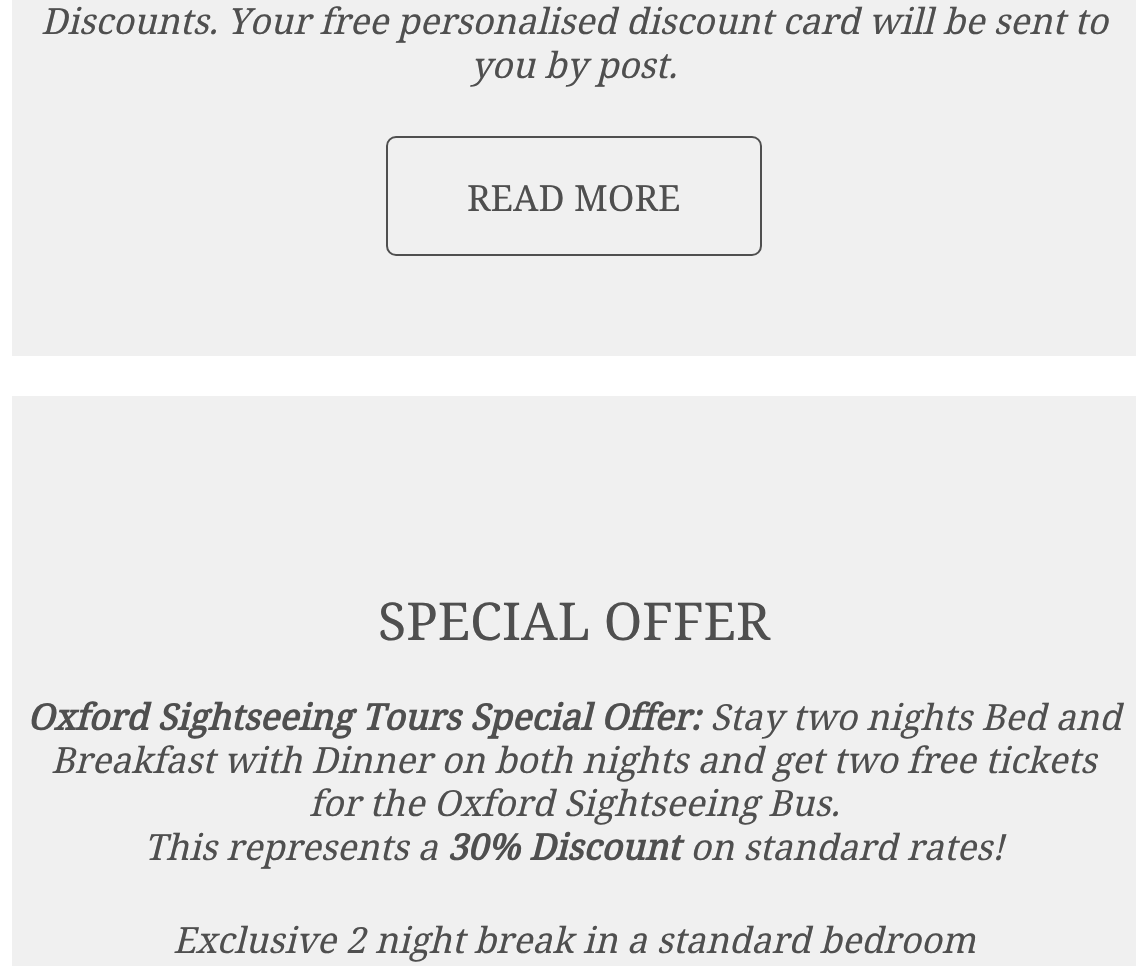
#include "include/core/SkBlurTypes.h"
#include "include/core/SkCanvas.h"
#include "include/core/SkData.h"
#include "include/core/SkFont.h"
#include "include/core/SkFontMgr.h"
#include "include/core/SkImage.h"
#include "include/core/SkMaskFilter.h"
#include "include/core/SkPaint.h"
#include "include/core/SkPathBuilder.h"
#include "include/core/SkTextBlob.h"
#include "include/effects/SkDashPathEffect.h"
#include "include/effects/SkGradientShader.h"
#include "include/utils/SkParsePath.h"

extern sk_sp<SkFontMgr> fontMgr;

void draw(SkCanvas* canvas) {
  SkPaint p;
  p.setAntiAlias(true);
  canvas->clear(SK_ColorWHITE);
  p.setColor(SkColorSetRGB(240, 240, 240));
  canvas->drawRect(SkRect::MakeLTRB(12, 0, 1136, 356), p);
  p.setStyle(SkPaint::kStroke_Style);
  p.setStrokeWidth(2);
  p.setColor(SkColorSetRGB(79, 79, 79));
  canvas->drawRoundRect(SkRect::MakeLTRB(387, 137, 761, 255), 9, 9, p);
  p.setStyle(SkPaint::kFill_Style);
  p.setColor(SkColorSetRGB(240, 240, 240));
  canvas->drawRect(SkRect::MakeLTRB(12, 396, 1136, 966), p);
  SkFont font1(fontMgr->matchFamilyStyle("Noto Serif", SkFontStyle::Italic()), 36);
  font1.setSubpixel(true);
  p.setColor(SkColorSetRGB(79, 79, 79));
  canvas->drawString("Discounts. Your free personalised discount card will be sent to", 41, 34, font1, p);
  canvas->drawString("you by post.", 471, 78, font1, p);
  SkFont font2(fontMgr->matchFamilyStyle("Noto Serif", SkFontStyle::Normal()), 36);
  font2.setSubpixel(true);
  canvas->drawString("READ MORE", 467, 211, font2, p);
  SkFont font3(fontMgr->matchFamilyStyle("Noto Serif", SkFontStyle::Normal()), 52);
  font3.setSubpixel(true);
  canvas->drawString("SPECIAL OFFER", 378, 640, font3, p);
  SkFont font4(fontMgr->matchFamilyStyle("Noto Serif", SkFontStyle::BoldItalic()), 36);
  font4.setSubpixel(true);
  canvas->drawString("Oxford Sightseeing Tours Special Offer:", 27, 730, font4, p);
  canvas->drawString("Stay two nights Bed and", 710, 730, font1, p);
  canvas->drawString("Breakfast with Dinner on both nights and get two free tickets", 51, 773, font1, p);
  canvas->drawString("for the Oxford Sightseeing Bus.", 309, 816, font1, p);
  canvas->drawString("This represents a", 144, 860, font1, p);
  canvas->drawString("30% Discount", 447, 860, font4, p);
  canvas->drawString("on standard rates!", 690, 860, font1, p);
  canvas->drawString("Exclusive 2 night break in a standard bedroom", 173, 953, font1, p);
}
